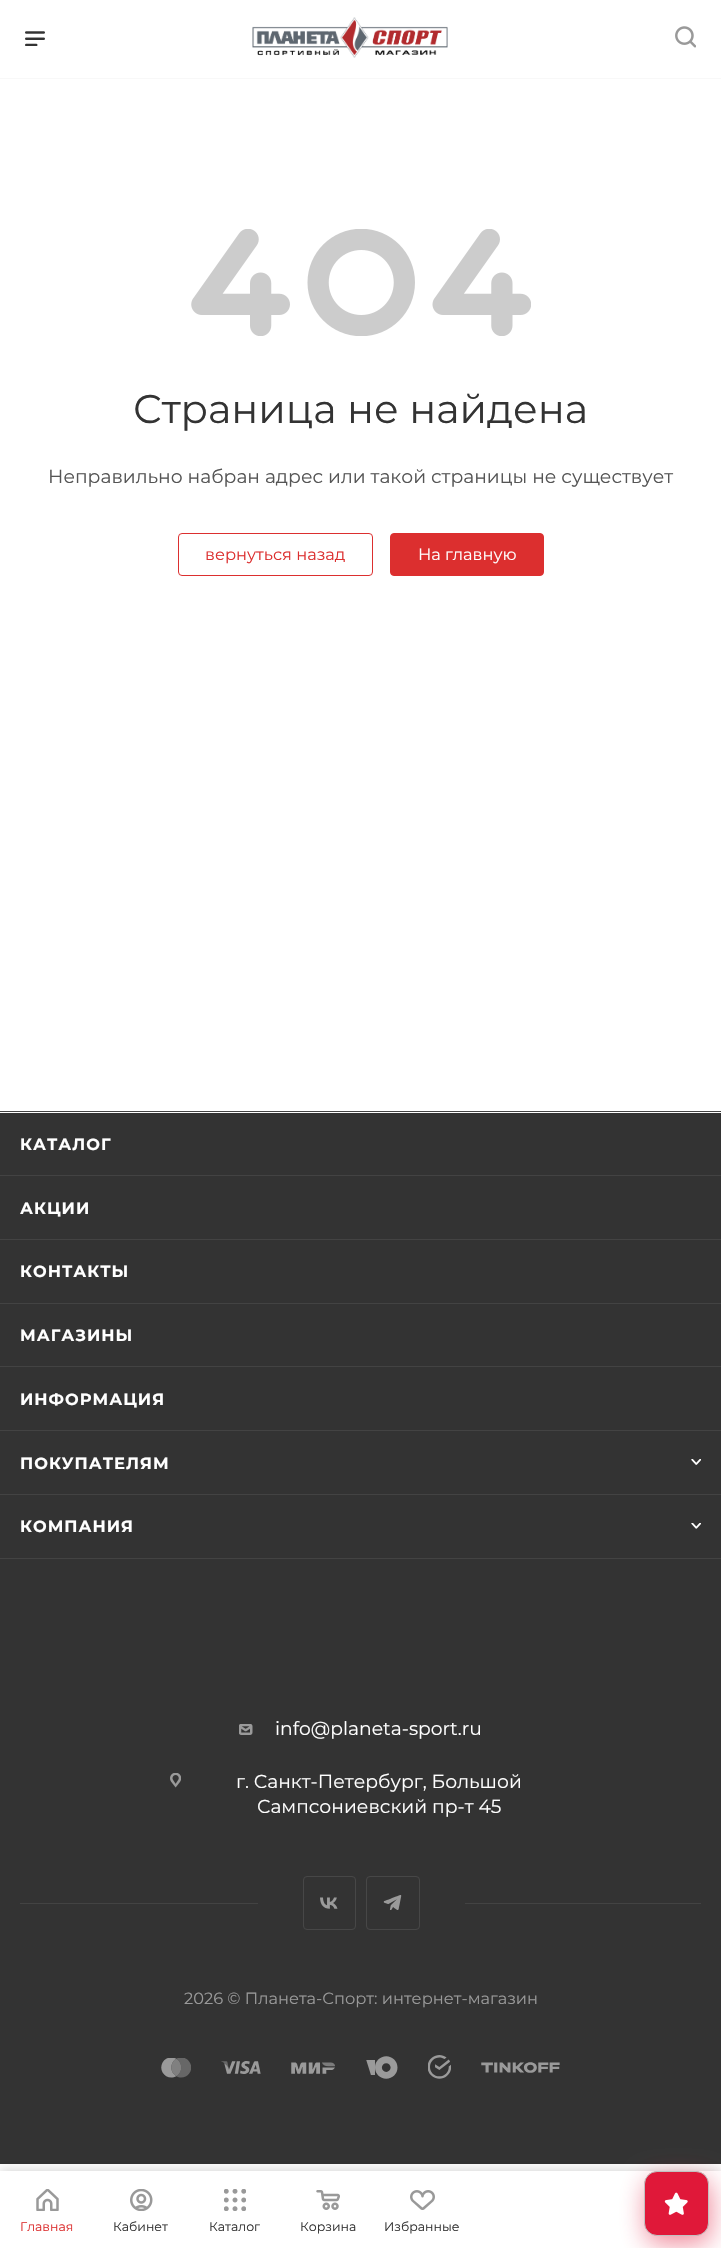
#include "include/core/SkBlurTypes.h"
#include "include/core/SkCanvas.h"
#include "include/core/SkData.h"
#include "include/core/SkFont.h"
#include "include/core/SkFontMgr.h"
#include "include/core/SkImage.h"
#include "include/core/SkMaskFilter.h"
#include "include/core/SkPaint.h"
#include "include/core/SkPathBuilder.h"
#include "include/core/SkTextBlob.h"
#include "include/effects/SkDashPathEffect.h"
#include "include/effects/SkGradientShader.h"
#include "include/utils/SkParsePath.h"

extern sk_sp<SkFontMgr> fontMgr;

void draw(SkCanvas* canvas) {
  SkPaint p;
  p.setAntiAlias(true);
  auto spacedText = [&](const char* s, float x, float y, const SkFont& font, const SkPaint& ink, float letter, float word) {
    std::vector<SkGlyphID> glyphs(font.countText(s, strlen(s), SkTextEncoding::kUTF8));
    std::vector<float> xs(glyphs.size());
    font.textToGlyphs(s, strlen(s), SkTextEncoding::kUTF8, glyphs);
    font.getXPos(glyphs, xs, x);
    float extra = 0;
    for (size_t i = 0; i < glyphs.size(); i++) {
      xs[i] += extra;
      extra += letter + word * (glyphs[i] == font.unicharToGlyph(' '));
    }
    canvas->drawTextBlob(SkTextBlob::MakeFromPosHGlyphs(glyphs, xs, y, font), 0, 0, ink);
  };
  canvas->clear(SK_ColorWHITE);
  p.setColor(SkColorSetRGB(248, 248, 248));
  canvas->drawRect(SkRect::MakeLTRB(0, 78, 721, 79), p);
  canvas->drawImageRect(SkImages::DeferredFromEncodedData(SkData::MakeFromFileName("images/1.png")), SkRect::MakeLTRB(25, 31, 45, 46), SkSamplingOptions());
  canvas->drawImageRect(SkImages::DeferredFromEncodedData(SkData::MakeFromFileName("images/2.png")), SkRect::MakeLTRB(252, 17, 448, 58), SkSamplingOptions());
  canvas->drawImageRect(SkImages::DeferredFromEncodedData(SkData::MakeFromFileName("images/3.png")), SkRect::MakeLTRB(675, 26, 696, 48), SkSamplingOptions());
  canvas->drawImageRect(SkImages::DeferredFromEncodedData(SkData::MakeFromFileName("images/4.png")), SkRect::MakeLTRB(191, 229, 531, 336), SkSamplingOptions());
  p.setStyle(SkPaint::kStroke_Style);
  p.setStrokeWidth(1);
  p.setColor(SkColorSetRGB(220, 47, 47));
  canvas->drawRoundRect(SkRect::MakeLTRB(178.5f, 533.5f, 372.5f, 575.5f), 3.5f, 3.5f, p);
  p.setStyle(SkPaint::kFill_Style);
  canvas->drawRoundRect(SkRect::MakeLTRB(390.5f, 533.5f, 543.5f, 575.5f), 3.5f, 3.5f, p);
  p.setStyle(SkPaint::kStroke_Style);
  canvas->drawRoundRect(SkRect::MakeLTRB(390.5f, 533.5f, 543.5f, 575.5f), 3.5f, 3.5f, p);
  p.setStyle(SkPaint::kFill_Style);
  p.setColor(SkColorSetRGB(51, 51, 51));
  canvas->drawRect(SkRect::MakeLTRB(0, 1113, 721, 2164), p);
  p.setColor(SkColorSetRGB(67, 67, 67));
  canvas->drawRect(SkRect::MakeLTRB(0, 1111, 721, 1112), p);
  canvas->drawRect(SkRect::MakeLTRB(0, 1175, 721, 1176), p);
  canvas->drawRect(SkRect::MakeLTRB(0, 1239, 721, 1240), p);
  canvas->drawRect(SkRect::MakeLTRB(0, 1303, 721, 1304), p);
  canvas->drawRect(SkRect::MakeLTRB(0, 1366, 721, 1367), p);
  canvas->drawRect(SkRect::MakeLTRB(0, 1430, 721, 1431), p);
  canvas->drawRect(SkRect::MakeLTRB(0, 1494, 721, 1495), p);
  canvas->drawImageRect(SkImages::DeferredFromEncodedData(SkData::MakeFromFileName("images/5.png")), SkRect::MakeLTRB(691, 1459, 701, 1465), SkSamplingOptions());
  canvas->drawRect(SkRect::MakeLTRB(0, 1558, 721, 1559), p);
  canvas->drawImageRect(SkImages::DeferredFromEncodedData(SkData::MakeFromFileName("images/6.png")), SkRect::MakeLTRB(691, 1523, 701, 1529), SkSamplingOptions());
  canvas->drawImageRect(SkImages::DeferredFromEncodedData(SkData::MakeFromFileName("images/7.png")), SkRect::MakeLTRB(239, 1724, 253, 1735), SkSamplingOptions());
  canvas->drawImageRect(SkImages::DeferredFromEncodedData(SkData::MakeFromFileName("images/8.png")), SkRect::MakeLTRB(170, 1773, 181, 1788), SkSamplingOptions());
  canvas->drawRect(SkRect::MakeLTRB(20, 1903, 701, 1904), p);
  p.setColor(SkColorSetRGB(51, 51, 51));
  canvas->drawRect(SkRect::MakeLTRB(258, 1903, 465, 1904), p);
  canvas->drawImageRect(SkImages::DeferredFromEncodedData(SkData::MakeFromFileName("images/9.png")), SkRect::MakeLTRB(320, 1897, 338, 1909), SkSamplingOptions());
  p.setStyle(SkPaint::kStroke_Style);
  p.setColor(SkColorSetRGB(71, 71, 71));
  canvas->drawRoundRect(SkRect::MakeLTRB(303.5f, 1876.5f, 355.5f, 1929.5f), 3.5f, 3.5f, p);
  canvas->drawImageRect(SkImages::DeferredFromEncodedData(SkData::MakeFromFileName("images/10.png")), SkRect::MakeLTRB(383, 1895, 402, 1910), SkSamplingOptions());
  canvas->drawRoundRect(SkRect::MakeLTRB(366.5f, 1876.5f, 419.5f, 1929.5f), 3.5f, 3.5f, p);
  canvas->drawImageRect(SkImages::DeferredFromEncodedData(SkData::MakeFromFileName("images/11.png")), SkRect::MakeLTRB(161, 2058, 191, 2078), SkSamplingOptions());
  canvas->drawImageRect(SkImages::DeferredFromEncodedData(SkData::MakeFromFileName("images/12.png")), SkRect::MakeLTRB(221, 2061, 261, 2074), SkSamplingOptions());
  canvas->drawImageRect(SkImages::DeferredFromEncodedData(SkData::MakeFromFileName("images/13.png")), SkRect::MakeLTRB(291, 2062, 335, 2074), SkSamplingOptions());
  canvas->drawImageRect(SkImages::DeferredFromEncodedData(SkData::MakeFromFileName("images/14.png")), SkRect::MakeLTRB(366, 2056, 398, 2079), SkSamplingOptions());
  canvas->drawImageRect(SkImages::DeferredFromEncodedData(SkData::MakeFromFileName("images/15.png")), SkRect::MakeLTRB(428, 2055, 451, 2079), SkSamplingOptions());
  canvas->drawImageRect(SkImages::DeferredFromEncodedData(SkData::MakeFromFileName("images/16.png")), SkRect::MakeLTRB(481, 2062, 560, 2073), SkSamplingOptions());
  p.setStyle(SkPaint::kFill_Style);
  p.setColor(SkColorSetARGB(38, 0, 0, 0));
  p.setMaskFilter(SkMaskFilter::MakeBlur(kNormal_SkBlurStyle, 5));
  canvas->drawRect(SkRect::MakeLTRB(0, 2169, 721, 2246), p);
  p.setMaskFilter(nullptr);
  p.setColor(SK_ColorWHITE);
  canvas->drawRect(SkRect::MakeLTRB(0, 2171, 721, 2248), p);
  canvas->drawImageRect(SkImages::DeferredFromEncodedData(SkData::MakeFromFileName("images/17.png")), SkRect::MakeLTRB(36, 2189, 59, 2211), SkSamplingOptions());
  canvas->drawImageRect(SkImages::DeferredFromEncodedData(SkData::MakeFromFileName("images/18.png")), SkRect::MakeLTRB(130, 2189, 153, 2211), SkSamplingOptions());
  canvas->drawImageRect(SkImages::DeferredFromEncodedData(SkData::MakeFromFileName("images/19.png")), SkRect::MakeLTRB(224, 2189, 246, 2211), SkSamplingOptions());
  canvas->drawImageRect(SkImages::DeferredFromEncodedData(SkData::MakeFromFileName("images/20.png")), SkRect::MakeLTRB(316, 2190, 340, 2210), SkSamplingOptions());
  canvas->drawImageRect(SkImages::DeferredFromEncodedData(SkData::MakeFromFileName("images/21.png")), SkRect::MakeLTRB(410, 2190, 435, 2210), SkSamplingOptions());
  p.setColor(SkColorSetARGB(128, 224, 24, 57));
  p.setMaskFilter(SkMaskFilter::MakeBlur(kNormal_SkBlurStyle, 13));
  canvas->drawRoundRect(SkRect::MakeLTRB(646, 2179, 711, 2244), 13, 13, p);
  p.setMaskFilter(nullptr);
  p.setColor(SkColorSetRGB(224, 24, 57));
  canvas->drawRoundRect(SkRect::MakeLTRB(644.5f, 2171.5f, 708.5f, 2235.5f), 12.5f, 12.5f, p);
  p.setStyle(SkPaint::kStroke_Style);
  p.setColor(SkColorSetRGB(193, 193, 193));
  canvas->drawRoundRect(SkRect::MakeLTRB(644.5f, 2171.5f, 708.5f, 2235.5f), 12.5f, 12.5f, p);
  canvas->drawImageRect(SkImages::DeferredFromEncodedData(SkData::MakeFromFileName("images/22.png")), SkRect::MakeLTRB(664, 2192, 688, 2215), SkSamplingOptions());
  SkFont font1(fontMgr->matchFamilyStyle("Montserrat", SkFontStyle::Normal()), 40);
  font1.setSubpixel(true);
  p.setStyle(SkPaint::kFill_Style);
  p.setColor(SkColorSetRGB(51, 51, 51));
  canvas->drawString("Страница не найдена", 133, 423, font1, p);
  SkFont font2(fontMgr->matchFamilyStyle("Montserrat", SkFontStyle::Normal()), 18.75f);
  font2.setSubpixel(true);
  p.setColor(SkColorSetRGB(85, 85, 85));
  canvas->drawString("Неправильно набран адрес или такой страницы не существует", 48, 483, font2, p);
  SkFont font3(fontMgr->matchFamilyStyle("Montserrat", SkFontStyle::Normal()), 16.25f);
  font3.setSubpixel(true);
  p.setColor(SkColorSetRGB(220, 47, 47));
  canvas->drawString("вернуться назад", 205, 560, font3, p);
  p.setColor(SK_ColorWHITE);
  canvas->drawString("На главную", 418, 560, font3, p);
  SkFont font4(fontMgr->matchFamilyStyle("Montserrat", SkFontStyle::Bold()), 16.25f);
  font4.setSubpixel(true);
  spacedText("КАТАЛОГ", 20, 1150, font4, p, 1, 0);
  spacedText("АКЦИИ", 20, 1214, font4, p, 1, 0);
  spacedText("КОНТАКТЫ", 20, 1277, font4, p, 1, 0);
  spacedText("МАГАЗИНЫ", 20, 1341, font4, p, 1, 0);
  spacedText("ИНФОРМАЦИЯ", 20, 1405, font4, p, 1, 0);
  spacedText("ПОКУПАТЕЛЯМ", 20, 1469, font4, p, 1, 0);
  spacedText("КОМПАНИЯ", 20, 1532, font4, p, 1, 0);
  canvas->drawString("info@planeta-sport.ru", 275, 1735, font2, p);
  canvas->drawString("г. Санкт-Петербург, Большой", 236, 1788, font2, p);
  canvas->drawString("Сампсониевский пр-т 45", 257, 1813, font2, p);
  p.setColor(SkColorSetRGB(153, 153, 153));
  canvas->drawString("2026 © Планета-Спорт: интернет-магазин", 184, 2004, font3, p);
  SkFont font5(fontMgr->matchFamilyStyle("Montserrat", SkFontStyle::Normal()), 12.5f);
  font5.setSubpixel(true);
  p.setColor(SkColorSetRGB(220, 47, 47));
  canvas->drawString("Главная", 20, 2231, font5, p);
  p.setColor(SkColorSetRGB(51, 51, 51));
  canvas->drawString("Кабинет", 113, 2231, font5, p);
  canvas->drawString("Каталог", 209, 2231, font5, p);
  canvas->drawString("Корзина", 300, 2231, font5, p);
  canvas->drawString("Избранные", 384, 2231, font5, p);
}
